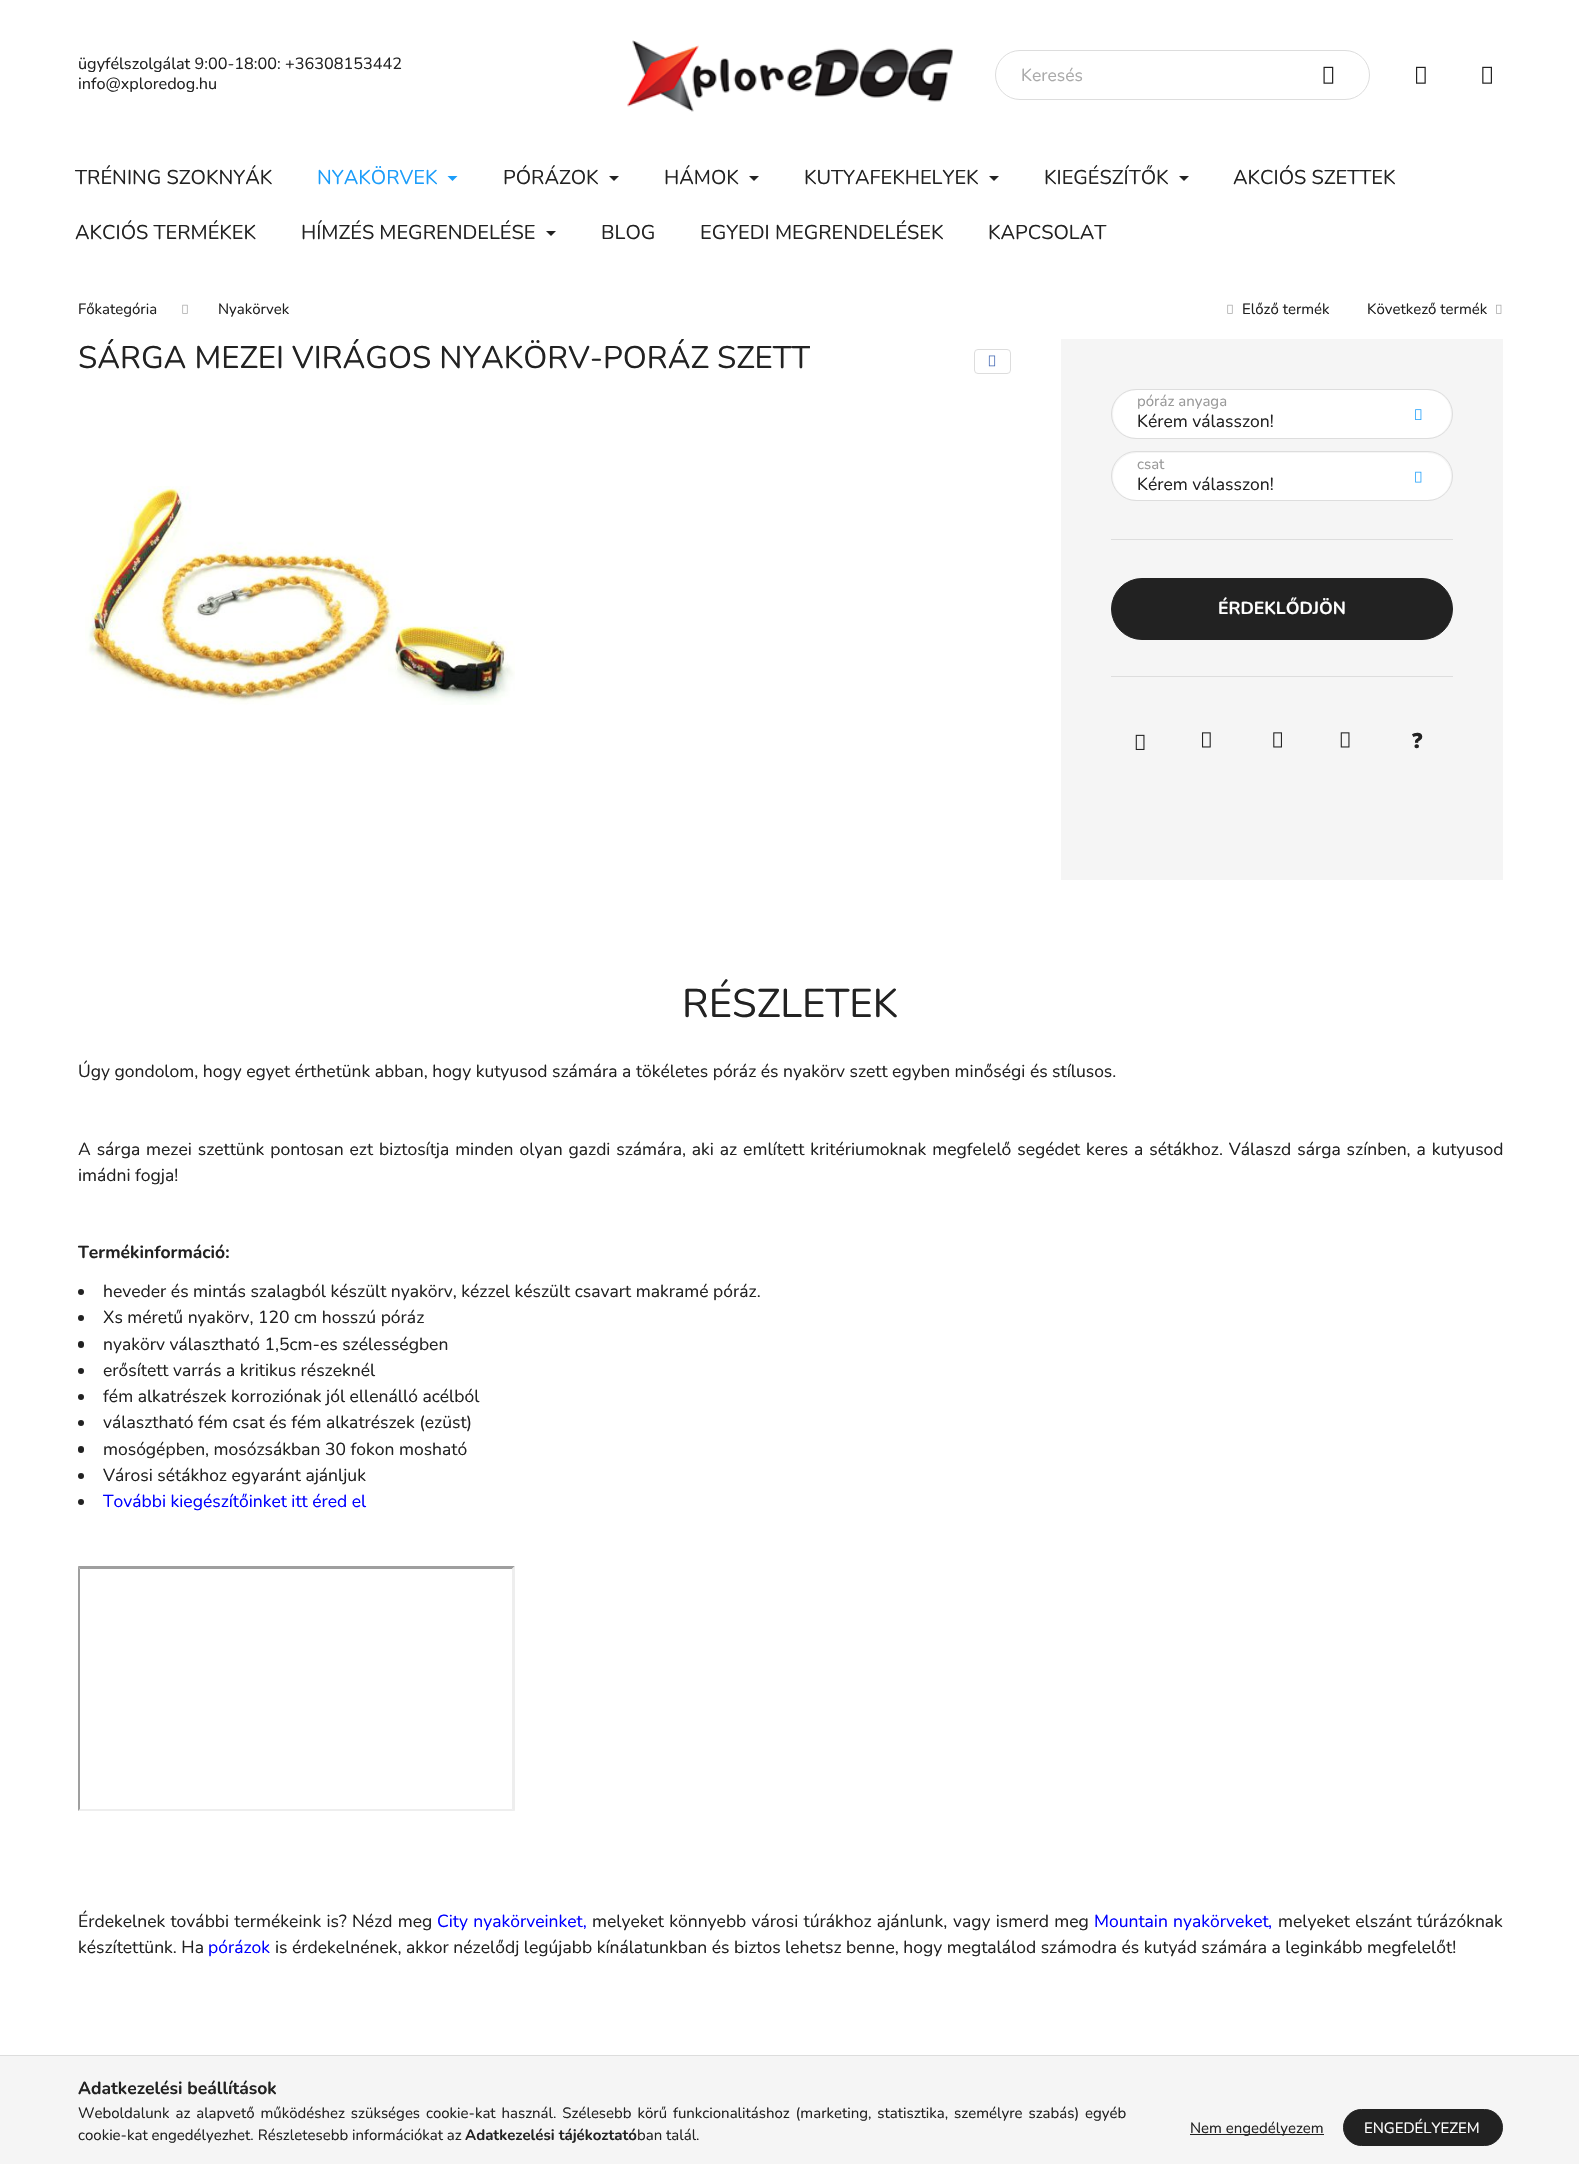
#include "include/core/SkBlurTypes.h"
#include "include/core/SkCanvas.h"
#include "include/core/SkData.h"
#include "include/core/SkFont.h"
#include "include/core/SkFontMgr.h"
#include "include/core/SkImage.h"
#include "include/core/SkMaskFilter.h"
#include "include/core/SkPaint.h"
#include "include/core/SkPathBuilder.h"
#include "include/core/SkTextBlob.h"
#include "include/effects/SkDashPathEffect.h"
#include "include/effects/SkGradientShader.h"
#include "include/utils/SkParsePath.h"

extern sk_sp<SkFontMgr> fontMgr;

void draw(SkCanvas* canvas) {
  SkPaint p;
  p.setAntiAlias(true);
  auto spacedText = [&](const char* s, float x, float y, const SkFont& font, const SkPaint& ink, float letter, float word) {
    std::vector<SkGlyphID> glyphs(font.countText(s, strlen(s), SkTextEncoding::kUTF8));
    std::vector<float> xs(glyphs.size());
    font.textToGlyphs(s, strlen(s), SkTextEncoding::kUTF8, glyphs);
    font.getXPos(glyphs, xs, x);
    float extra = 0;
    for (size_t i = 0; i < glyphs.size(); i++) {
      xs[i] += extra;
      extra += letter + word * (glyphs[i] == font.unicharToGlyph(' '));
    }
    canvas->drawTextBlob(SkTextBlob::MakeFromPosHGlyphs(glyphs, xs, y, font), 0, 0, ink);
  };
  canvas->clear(SK_ColorWHITE);
  canvas->drawImageRect(SkImages::DeferredFromEncodedData(SkData::MakeFromFileName("images/1.png")), SkRect::MakeLTRB(627, 40, 953, 112), SkSamplingOptions());
  p.setStyle(SkPaint::kStroke_Style);
  p.setStrokeWidth(1);
  p.setColor(SkColorSetRGB(221, 221, 221));
  canvas->drawRoundRect(SkRect::MakeLTRB(995.5f, 50.5f, 1369.5f, 99.5f), 24.5f, 24.5f, p);
  canvas->drawImageRect(SkImages::DeferredFromEncodedData(SkData::MakeFromFileName("images/2.png")), SkRect::MakeLTRB(1323, 66, 1334, 84), SkSamplingOptions());
  canvas->drawImageRect(SkImages::DeferredFromEncodedData(SkData::MakeFromFileName("images/3.png")), SkRect::MakeLTRB(1416, 66, 1426, 84), SkSamplingOptions());
  canvas->drawImageRect(SkImages::DeferredFromEncodedData(SkData::MakeFromFileName("images/4.png")), SkRect::MakeLTRB(1482, 66, 1492, 84), SkSamplingOptions());
  p.setStyle(SkPaint::kFill_Style);
  p.setColor(SkColorSetRGB(27, 157, 250));
  canvas->drawPath(SkPathBuilder().moveTo(447.5f, 176).lineTo(457.5f, 176).lineTo(452.5f, 181).close().detach(), p);
  p.setColor(SkColorSetRGB(34, 34, 34));
  canvas->drawPath(SkPathBuilder().moveTo(609, 176).lineTo(619, 176).lineTo(614, 181).close().detach(), p);
  canvas->drawPath(SkPathBuilder().moveTo(749, 176).lineTo(759, 176).lineTo(754, 181).close().detach(), p);
  canvas->drawPath(SkPathBuilder().moveTo(989, 176).lineTo(999, 176).lineTo(994, 181).close().detach(), p);
  canvas->drawPath(SkPathBuilder().moveTo(1179, 176).lineTo(1189, 176).lineTo(1184, 181).close().detach(), p);
  canvas->drawPath(SkPathBuilder().moveTo(546, 231).lineTo(556, 231).lineTo(551, 236).close().detach(), p);
  canvas->drawImageRect(SkImages::DeferredFromEncodedData(SkData::MakeFromFileName("images/5.png")), SkRect::MakeLTRB(182, 304, 188, 314), SkSamplingOptions());
  canvas->drawImageRect(SkImages::DeferredFromEncodedData(SkData::MakeFromFileName("images/5.png")), SkRect::MakeLTRB(1227, 304, 1233, 314), SkSamplingOptions());
  canvas->drawImageRect(SkImages::DeferredFromEncodedData(SkData::MakeFromFileName("images/6.png")), SkRect::MakeLTRB(1496, 304, 1502, 314), SkSamplingOptions());
  p.setStyle(SkPaint::kStroke_Style);
  p.setColor(SkColorSetRGB(221, 221, 221));
  canvas->drawRoundRect(SkRect::MakeLTRB(974.5f, 349.5f, 1010.5f, 373.5f), 3.5f, 3.5f, p);
  canvas->drawImageRect(SkImages::DeferredFromEncodedData(SkData::MakeFromFileName("images/7.png")), SkRect::MakeLTRB(988, 355, 996, 367), SkSamplingOptions());
  canvas->drawImageRect(SkImages::DeferredFromEncodedData(SkData::MakeFromFileName("images/8.png")), SkRect::MakeLTRB(85, 486, 515, 705), SkSamplingOptions());
  p.setStyle(SkPaint::kFill_Style);
  p.setColor(SkColorSetRGB(245, 245, 245));
  canvas->drawRect(SkRect::MakeLTRB(1061, 339, 1503, 880), p);
  p.setColor(SkColorSetRGB(221, 221, 221));
  canvas->drawRect(SkRect::MakeLTRB(1111, 539, 1453, 540), p);
  p.setColor(SK_ColorWHITE);
  canvas->drawRoundRect(SkRect::MakeLTRB(1113, 390, 1451, 438), 24, 24, p);
  p.setStyle(SkPaint::kStroke_Style);
  p.setColor(SkColorSetRGB(221, 221, 221));
  canvas->drawRoundRect(SkRect::MakeLTRB(1111.5f, 389.5f, 1452.5f, 438.5f), 24.5f, 24.5f, p);
  canvas->drawImageRect(SkImages::DeferredFromEncodedData(SkData::MakeFromFileName("images/9.png")), SkRect::MakeLTRB(1415, 409, 1422, 420), SkSamplingOptions());
  p.setStyle(SkPaint::kFill_Style);
  p.setColor(SK_ColorWHITE);
  canvas->drawRoundRect(SkRect::MakeLTRB(1113, 453, 1451, 500), 23.5f, 23.5f, p);
  p.setStyle(SkPaint::kStroke_Style);
  p.setColor(SkColorSetRGB(221, 221, 221));
  canvas->drawRoundRect(SkRect::MakeLTRB(1111.5f, 451.5f, 1452.5f, 500.5f), 24.5f, 24.5f, p);
  canvas->drawImageRect(SkImages::DeferredFromEncodedData(SkData::MakeFromFileName("images/10.png")), SkRect::MakeLTRB(1415, 471, 1422, 483), SkSamplingOptions());
  p.setStyle(SkPaint::kFill_Style);
  p.setColor(SkColorSetRGB(34, 34, 34));
  canvas->drawRoundRect(SkRect::MakeLTRB(1111.5f, 578.5f, 1452.5f, 639.5f), 30.5f, 30.5f, p);
  p.setStyle(SkPaint::kStroke_Style);
  canvas->drawRoundRect(SkRect::MakeLTRB(1111.5f, 578.5f, 1452.5f, 639.5f), 30.5f, 30.5f, p);
  p.setStyle(SkPaint::kFill_Style);
  p.setColor(SkColorSetRGB(221, 221, 221));
  canvas->drawRect(SkRect::MakeLTRB(1111, 676, 1453, 677), p);
  canvas->drawImageRect(SkImages::DeferredFromEncodedData(SkData::MakeFromFileName("images/11.png")), SkRect::MakeLTRB(1135, 734, 1145, 750), SkSamplingOptions());
  canvas->drawImageRect(SkImages::DeferredFromEncodedData(SkData::MakeFromFileName("images/12.png")), SkRect::MakeLTRB(1202, 732, 1211, 748), SkSamplingOptions());
  canvas->drawImageRect(SkImages::DeferredFromEncodedData(SkData::MakeFromFileName("images/13.png")), SkRect::MakeLTRB(1273, 732, 1282, 748), SkSamplingOptions());
  canvas->drawImageRect(SkImages::DeferredFromEncodedData(SkData::MakeFromFileName("images/14.png")), SkRect::MakeLTRB(1340, 732, 1350, 748), SkSamplingOptions());
  p.setColor(SkColorSetRGB(34, 34, 34));
  canvas->drawCircle(81, 1292, 3, p);
  canvas->drawCircle(81, 1318, 3, p);
  canvas->drawRoundRect(SkRect::MakeLTRB(78, 1341, 84, 1348), 3, 3, p);
  canvas->drawCircle(81, 1371, 3, p);
  canvas->drawCircle(81, 1397, 3, p);
  canvas->drawCircle(81, 1423, 3, p);
  canvas->drawRoundRect(SkRect::MakeLTRB(78, 1446, 84, 1453), 3, 3, p);
  canvas->drawCircle(81, 1476, 3, p);
  canvas->drawCircle(81, 1502, 3, p);
  p.setColor(SkColorSetRGB(159, 159, 159));
  canvas->drawPath(SkPathBuilder().moveTo(78, 1566).lineTo(515, 1566).lineTo(512, 1569).lineTo(80, 1569).close().detach(), p);
  p.setColor(SkColorSetRGB(238, 238, 238));
  canvas->drawPath(SkPathBuilder().moveTo(515, 1566).lineTo(515, 1811).lineTo(512, 1809).lineTo(512, 1569).close().detach(), p);
  canvas->drawPath(SkPathBuilder().moveTo(515, 1811).lineTo(78, 1811).lineTo(80, 1809).lineTo(512, 1809).close().detach(), p);
  p.setColor(SkColorSetRGB(159, 159, 159));
  canvas->drawPath(SkPathBuilder().moveTo(78, 1811).lineTo(78, 1566).lineTo(80, 1569).lineTo(80, 1809).close().detach(), p);
  p.setColor(SkColorSetRGB(245, 245, 245));
  canvas->drawRect(SkRect::MakeLTRB(0, 2056, 1579, 2164), p);
  p.setColor(SkColorSetRGB(221, 221, 221));
  canvas->drawRect(SkRect::MakeLTRB(0, 2055, 1579, 2056), p);
  p.setColor(SkColorSetRGB(34, 34, 34));
  canvas->drawRect(SkRect::MakeLTRB(1190, 2134, 1324, 2135), p);
  canvas->drawRoundRect(SkRect::MakeLTRB(1343.5f, 2109.5f, 1502.5f, 2145.5f), 18, 18, p);
  p.setStyle(SkPaint::kStroke_Style);
  canvas->drawRoundRect(SkRect::MakeLTRB(1343.5f, 2109.5f, 1502.5f, 2145.5f), 18, 18, p);
  SkFont font1(fontMgr->matchFamilyStyle("Nunito", SkFontStyle::Normal()), 16.25f);
  font1.setSubpixel(true);
  p.setStyle(SkPaint::kFill_Style);
  canvas->drawString("ügyfélszolgálat 9:00-18:00: +36308153442", 78, 69, font1, p);
  canvas->drawString("info@xploredog.hu", 78, 89, font1, p);
  SkFont font2(fontMgr->matchFamilyStyle("Nunito", SkFontStyle::Normal()), 17.5f);
  font2.setSubpixel(true);
  p.setColor(SkColorSetRGB(170, 170, 170));
  canvas->drawString("Keresés", 1021, 81, font2, p);
  SkFont font3(fontMgr->matchFamilyStyle("Nunito", SkFontStyle::Normal()), 20);
  font3.setSubpixel(true);
  p.setColor(SkColorSetRGB(34, 34, 34));
  canvas->drawString("TRÉNING SZOKNYÁK", 75, 184, font3, p);
  p.setColor(SkColorSetRGB(27, 157, 250));
  canvas->drawString("NYAKÖRVEK", 317, 184, font3, p);
  p.setColor(SkColorSetRGB(34, 34, 34));
  canvas->drawString("PÓRÁZOK", 503, 184, font3, p);
  canvas->drawString("HÁMOK", 664, 184, font3, p);
  canvas->drawString("KUTYAFEKHELYEK", 804, 184, font3, p);
  canvas->drawString("KIEGÉSZÍTŐK", 1044, 184, font3, p);
  canvas->drawString("AKCIÓS SZETTEK", 1233, 184, font3, p);
  canvas->drawString("AKCIÓS TERMÉKEK", 75, 239, font3, p);
  canvas->drawString("HÍMZÉS MEGRENDELÉSE", 301, 239, font3, p);
  canvas->drawString("BLOG", 601, 239, font3, p);
  canvas->drawString("EGYEDI MEGRENDELÉSEK", 700, 239, font3, p);
  canvas->drawString("KAPCSOLAT", 988, 239, font3, p);
  SkFont font4(fontMgr->matchFamilyStyle("Nunito", SkFontStyle::Normal()), 15);
  font4.setSubpixel(true);
  canvas->drawString("Főkategória", 78, 314, font4, p);
  canvas->drawString("Nyakörvek", 218, 314, font4, p);
  canvas->drawString("Előző termék", 1242, 314, font4, p);
  canvas->drawString("Következő termék", 1367, 314, font4, p);
  canvas->save();
  canvas->clipRect(SkRect::MakeLTRB(78, 339, 810, 376));
  SkFont font5(fontMgr->matchFamilyStyle("Nunito", SkFontStyle::Normal()), 31.25f);
  font5.setSubpixel(true);
  canvas->drawString("SÁRGA MEZEI VIRÁGOS NYAKÖRV-PORÁZ SZETT", 78, 368, font5, p);
  canvas->restore();
  p.setColor(SkColorSetRGB(153, 153, 153));
  canvas->drawString("póráz anyaga", 1137, 406, font4, p);
  p.setColor(SkColorSetRGB(34, 34, 34));
  canvas->drawString("Kérem válasszon!", 1137, 427, font2, p);
  p.setColor(SkColorSetRGB(153, 153, 153));
  canvas->drawString("csat", 1137, 469, font4, p);
  p.setColor(SkColorSetRGB(34, 34, 34));
  canvas->drawString("Kérem válasszon!", 1137, 490, font2, p);
  SkFont font6(fontMgr->matchFamilyStyle("Nunito", SkFontStyle::Bold()), 17.5f);
  font6.setSubpixel(true);
  p.setColor(SK_ColorWHITE);
  canvas->drawString("ÉRDEKLŐDJÖN", 1218, 614, font6, p);
  SkFont font7(fontMgr->matchFamilyStyle("Noto Sans", SkFontStyle(900, SkFontStyle::kNormal_Width, SkFontStyle::kUpright_Slant)), 21);
  font7.setSubpixel(true);
  p.setColor(SkColorSetRGB(34, 34, 34));
  canvas->drawString("?", 1412, 748, font7, p);
  SkFont font8(fontMgr->matchFamilyStyle("Nunito", SkFontStyle::Normal()), 40);
  font8.setSubpixel(true);
  canvas->drawString("RÉSZLETEK", 682, 1017, font8, p);
  canvas->drawString("Úgy gondolom, hogy egyet érthetünk abban, hogy kutyusod számára a tökéletes póráz és nyakörv szett egyben minőségi és stílusos.", 78, 1077, font2, p);
  spacedText("A sárga mezei szettünk pontosan ezt biztosítja minden olyan gazdi számára, aki az említett kritériumoknak megfelelő segédet keres a sétákhoz. Válaszd sárga színben, a kutyusod", 78, 1155, font2, p, 0, 1.4f);
  canvas->drawString("imádni fogja!", 78, 1181, font2, p);
  canvas->drawString("Termékinformáció:", 78, 1258, font6, p);
  canvas->drawString("heveder és mintás szalagból készült nyakörv, kézzel készült csavart makramé póráz.", 103, 1297, font2, p);
  canvas->drawString("Xs méretű nyakörv, 120 cm hosszú póráz", 103, 1323, font2, p);
  canvas->drawString("nyakörv választható 1,5cm-es szélességben", 103, 1350, font2, p);
  canvas->drawString("erősített varrás a kritikus részeknél", 103, 1376, font2, p);
  canvas->drawString("fém alkatrészek korroziónak jól ellenálló acélból", 103, 1402, font2, p);
  canvas->drawString("választható fém csat és fém alkatrészek (ezüst)", 103, 1428, font2, p);
  canvas->drawString("mosógépben, mosózsákban 30 fokon mosható", 103, 1455, font2, p);
  canvas->drawString("Városi sétákhoz egyaránt ajánljuk", 103, 1481, font2, p);
  p.setColor(SkColorSetRGB(0, 0, 255));
  canvas->drawString("További kiegészítőinket itt éred el", 103, 1507, font2, p);
  p.setColor(SkColorSetRGB(34, 34, 34));
  spacedText("Érdekelnek további termékeink is? Nézd meg", 78, 1927, font2, p, 0, 0.75f);
  p.setColor(SkColorSetRGB(0, 0, 255));
  spacedText("City nyakörveinket,", 437, 1927, font2, p, 0, 0.75f);
  p.setColor(SkColorSetRGB(34, 34, 34));
  spacedText("melyeket könnyebb városi túrákhoz ajánlunk,", 592, 1927, font2, p, 0, 0.75f);
  spacedText("vagy ismerd meg", 953, 1927, font2, p, 0, 0.75f);
  p.setColor(SkColorSetRGB(0, 0, 255));
  spacedText("Mountain nyakörveket", 1094, 1927, font2, p, 0, 0.75f);
  canvas->drawString(",", 1268, 1927, font2, p);
  p.setColor(SkColorSetRGB(34, 34, 34));
  spacedText("melyeket elszánt túrázóknak", 1278, 1927, font2, p, 0, 0.75f);
  canvas->drawString("készítettünk. Ha", 78, 1953, font2, p);
  p.setColor(SkColorSetRGB(0, 0, 255));
  canvas->drawString("pórázok", 208, 1953, font2, p);
  p.setColor(SkColorSetRGB(34, 34, 34));
  canvas->drawString("is érdekelnének, akkor nézelődj legújabb kínálatunkban és biztos lehetsz benne, hogy megtalálod számodra és kutyád számára a leginkább megfelelőt!", 275, 1953, font2, p);
  canvas->drawString("Adatkezelési beállítások", 78, 2094, font6, p);
  spacedText("Weboldalunk az alapvető működéshez szükséges cookie-kat használ. Szélesebb körű funkcionalitáshoz (marketing, statisztika, személyre szabás) egyéb", 78, 2118, font4, p, 0, 2);
  canvas->drawString("cookie-kat engedélyezhet. Részletesebb információkat az", 78, 2140, font4, p);
  SkFont font9(fontMgr->matchFamilyStyle("Nunito", SkFontStyle::Bold()), 15);
  font9.setSubpixel(true);
  canvas->drawString("Adatkezelési tájékoztató", 465, 2140, font9, p);
  canvas->drawString("ban talál.", 637, 2140, font4, p);
  canvas->drawString("Nem engedélyezem", 1190, 2133, font4, p);
  p.setColor(SK_ColorWHITE);
  canvas->drawString("ENGEDÉLYEZEM", 1364, 2133, font4, p);
}
